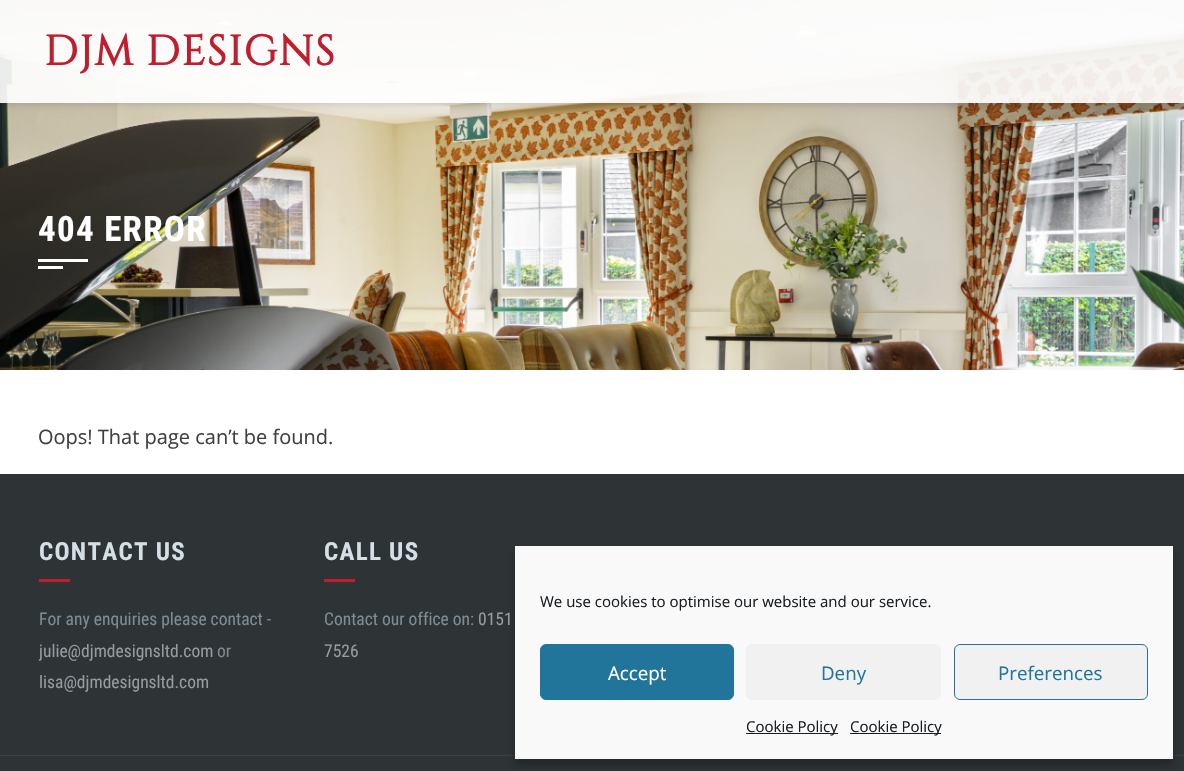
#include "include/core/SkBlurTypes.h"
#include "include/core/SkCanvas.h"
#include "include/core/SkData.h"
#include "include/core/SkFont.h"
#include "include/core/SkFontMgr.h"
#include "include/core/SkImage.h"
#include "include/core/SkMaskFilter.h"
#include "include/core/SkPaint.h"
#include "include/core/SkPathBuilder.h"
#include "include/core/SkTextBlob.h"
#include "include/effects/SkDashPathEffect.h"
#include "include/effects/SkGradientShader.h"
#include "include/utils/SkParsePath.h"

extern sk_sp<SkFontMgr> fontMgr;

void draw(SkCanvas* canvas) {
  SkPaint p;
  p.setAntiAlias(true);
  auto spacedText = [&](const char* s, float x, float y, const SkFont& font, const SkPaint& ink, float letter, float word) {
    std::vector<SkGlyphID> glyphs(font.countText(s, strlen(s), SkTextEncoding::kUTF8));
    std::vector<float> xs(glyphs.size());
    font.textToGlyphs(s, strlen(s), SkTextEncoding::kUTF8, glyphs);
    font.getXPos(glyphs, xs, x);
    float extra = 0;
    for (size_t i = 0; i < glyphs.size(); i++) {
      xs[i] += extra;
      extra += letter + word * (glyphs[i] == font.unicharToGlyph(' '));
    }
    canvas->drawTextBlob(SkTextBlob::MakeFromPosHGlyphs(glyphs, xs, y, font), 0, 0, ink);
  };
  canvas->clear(SK_ColorWHITE);
  canvas->drawImageRect(SkImages::DeferredFromEncodedData(SkData::MakeFromFileName("images/1.png")), SkRect::MakeLTRB(0, 0, 1184, 370), SkSamplingOptions());
  canvas->save();
  canvas->clipPath(SkPathBuilder(SkPathFillType::kEvenOdd).moveTo(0, 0).lineTo(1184, 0).lineTo(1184, 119).lineTo(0, 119).close().moveTo(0, 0).lineTo(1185, 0).lineTo(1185, 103).lineTo(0, 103).close().detach(), true);
  p.setColor(SkColorSetARGB(51, 0, 0, 0));
  p.setMaskFilter(SkMaskFilter::MakeBlur(kNormal_SkBlurStyle, 5));
  canvas->drawRect(SkRect::MakeLTRB(0, 0, 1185, 103), p);
  p.setMaskFilter(nullptr);
  canvas->restore();
  p.setColor(SkColorSetARGB(230, 255, 255, 255));
  canvas->drawRect(SkRect::MakeLTRB(0, 0, 1184, 103), p);
  p.setColor(SK_ColorWHITE);
  canvas->drawRect(SkRect::MakeLTRB(38, 259, 88, 262), p);
  canvas->drawRect(SkRect::MakeLTRB(38, 266, 63, 269), p);
  p.setColor(SkColorSetRGB(46, 51, 54));
  canvas->drawRect(SkRect::MakeLTRB(0, 474, 1184, 771), p);
  p.setColor(SkColorSetRGB(57, 63, 66));
  canvas->drawRect(SkRect::MakeLTRB(0, 755, 1184, 756), p);
  p.setColor(SkColorSetRGB(191, 30, 46));
  canvas->drawRect(SkRect::MakeLTRB(39, 579, 70, 582), p);
  canvas->drawRect(SkRect::MakeLTRB(324, 579, 355, 582), p);
  p.setColor(SkColorSetARGB(59, 0, 0, 0));
  p.setMaskFilter(SkMaskFilter::MakeBlur(kNormal_SkBlurStyle, 4));
  canvas->drawRect(SkRect::MakeLTRB(515, 554, 1173, 766), p);
  p.setMaskFilter(nullptr);
  p.setColor(SkColorSetRGB(249, 249, 249));
  canvas->drawRect(SkRect::MakeLTRB(515, 546, 1173, 759), p);
  p.setColor(SkColorSetRGB(33, 117, 155));
  canvas->drawRoundRect(SkRect::MakeLTRB(540.5f, 644.5f, 733.5f, 699.5f), 5.5f, 5.5f, p);
  p.setStyle(SkPaint::kStroke_Style);
  p.setStrokeWidth(1);
  canvas->drawRoundRect(SkRect::MakeLTRB(540.5f, 644.5f, 733.5f, 699.5f), 5.5f, 5.5f, p);
  p.setStyle(SkPaint::kFill_Style);
  p.setColor(SkColorSetRGB(241, 241, 241));
  canvas->drawRoundRect(SkRect::MakeLTRB(746, 644, 941, 700), 6, 6, p);
  canvas->drawRoundRect(SkRect::MakeLTRB(954.5f, 644.5f, 1147.5f, 699.5f), 5.5f, 5.5f, p);
  p.setStyle(SkPaint::kStroke_Style);
  p.setColor(SkColorSetRGB(33, 117, 155));
  canvas->drawRoundRect(SkRect::MakeLTRB(954.5f, 644.5f, 1147.5f, 699.5f), 5.5f, 5.5f, p);
  p.setStyle(SkPaint::kFill_Style);
  p.setColor(SkColorSetRGB(25, 30, 35));
  canvas->drawRect(SkRect::MakeLTRB(746, 733, 838, 734), p);
  canvas->drawRect(SkRect::MakeLTRB(850, 733, 941, 734), p);
  SkFont font1(fontMgr->matchFamilyStyle("Cinzel", SkFontStyle::Bold()), 42);
  font1.setSubpixel(true);
  p.setColor(SkColorSetRGB(191, 30, 46));
  spacedText("DJM DESIGNS", 44, 65, font1, p, 1.25f, 0);
  SkFont font2(fontMgr->matchFamilyStyle("Roboto Condensed", SkFontStyle::Bold()), 35);
  font2.setSubpixel(true);
  p.setColor(SK_ColorWHITE);
  spacedText("404 ERROR", 38, 241, font2, p, 1.25f, 0);
  SkFont font3(fontMgr->matchFamilyStyle("Open Sans", SkFontStyle::Normal()), 20);
  font3.setSubpixel(true);
  p.setColor(SkColorSetRGB(64, 64, 64));
  canvas->drawString("Oops! That page can’t be found.", 38, 444, font3, p);
  SkFont font4(fontMgr->matchFamilyStyle("Roboto Condensed", SkFontStyle::Bold()), 25);
  font4.setSubpixel(true);
  p.setColor(SkColorSetRGB(213, 223, 229));
  spacedText("CONTACT US", 39, 560, font4, p, 1.25f, 0);
  SkFont font5(fontMgr->matchFamilyStyle("Roboto Condensed", SkFontStyle::Normal()), 17.5f);
  font5.setSubpixel(true);
  p.setColor(SkColorSetRGB(126, 139, 147));
  canvas->drawString("For any enquiries please contact -", 39, 625, font5, p);
  p.setColor(SkColorSetRGB(148, 156, 160));
  canvas->drawString("julie@djmdesignsltd.com", 39, 657, font5, p);
  p.setColor(SkColorSetRGB(126, 139, 147));
  canvas->drawString("or", 217, 657, font5, p);
  p.setColor(SkColorSetRGB(148, 156, 160));
  canvas->drawString("lisa@djmdesignsltd.com", 39, 688, font5, p);
  p.setColor(SkColorSetRGB(213, 223, 229));
  spacedText("CALL US", 324, 560, font4, p, 1.25f, 0);
  p.setColor(SkColorSetRGB(126, 139, 147));
  canvas->drawString("Contact our office on:", 324, 625, font5, p);
  p.setColor(SkColorSetRGB(148, 156, 160));
  canvas->drawString("0151", 478, 625, font5, p);
  canvas->drawString("7526", 324, 657, font5, p);
  SkFont font6(fontMgr->matchFamilyStyle("Open Sans", SkFontStyle::Normal()), 15);
  font6.setSubpixel(true);
  p.setColor(SkColorSetRGB(25, 30, 35));
  canvas->drawString("We use cookies to optimise our website and our service.", 540, 607, font6, p);
  SkFont font7(fontMgr->matchFamilyStyle("Open Sans", SkFontStyle::Normal()), 18.75f);
  font7.setSubpixel(true);
  p.setColor(SK_ColorWHITE);
  canvas->drawString("Accept", 608, 680, font7, p);
  p.setColor(SkColorSetRGB(33, 117, 155));
  canvas->drawString("Deny", 821, 680, font7, p);
  canvas->drawString("Preferences", 998, 680, font7, p);
  p.setColor(SkColorSetRGB(25, 30, 35));
  canvas->drawString("Cookie Policy", 746, 732, font6, p);
  canvas->drawString("Cookie Policy", 850, 732, font6, p);
}
